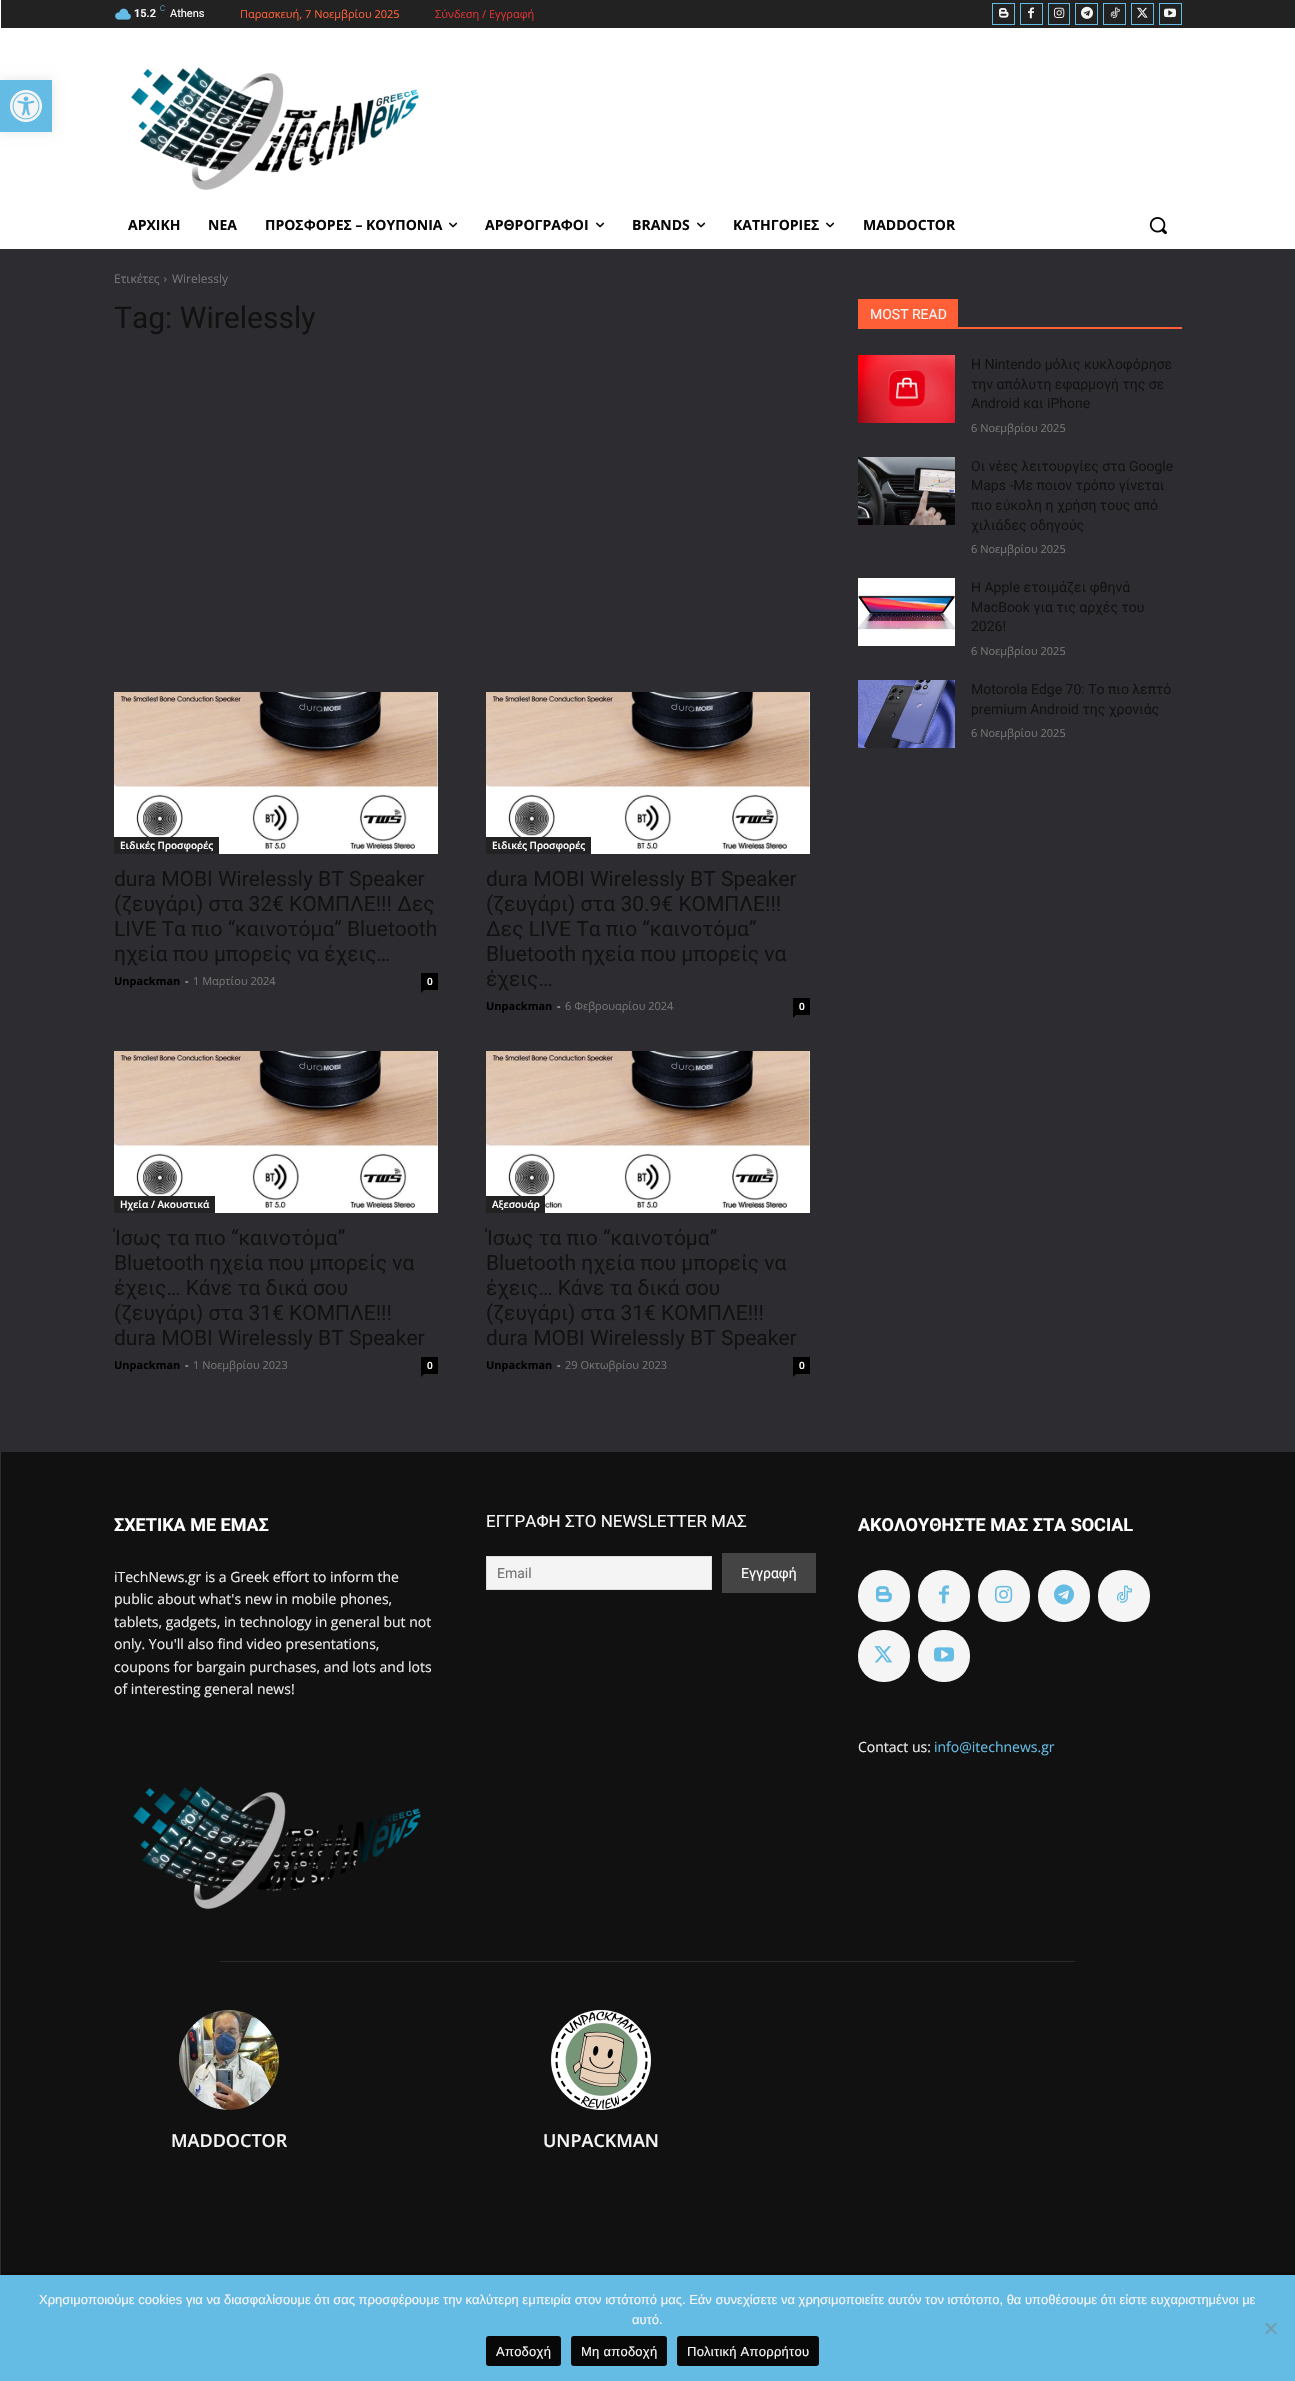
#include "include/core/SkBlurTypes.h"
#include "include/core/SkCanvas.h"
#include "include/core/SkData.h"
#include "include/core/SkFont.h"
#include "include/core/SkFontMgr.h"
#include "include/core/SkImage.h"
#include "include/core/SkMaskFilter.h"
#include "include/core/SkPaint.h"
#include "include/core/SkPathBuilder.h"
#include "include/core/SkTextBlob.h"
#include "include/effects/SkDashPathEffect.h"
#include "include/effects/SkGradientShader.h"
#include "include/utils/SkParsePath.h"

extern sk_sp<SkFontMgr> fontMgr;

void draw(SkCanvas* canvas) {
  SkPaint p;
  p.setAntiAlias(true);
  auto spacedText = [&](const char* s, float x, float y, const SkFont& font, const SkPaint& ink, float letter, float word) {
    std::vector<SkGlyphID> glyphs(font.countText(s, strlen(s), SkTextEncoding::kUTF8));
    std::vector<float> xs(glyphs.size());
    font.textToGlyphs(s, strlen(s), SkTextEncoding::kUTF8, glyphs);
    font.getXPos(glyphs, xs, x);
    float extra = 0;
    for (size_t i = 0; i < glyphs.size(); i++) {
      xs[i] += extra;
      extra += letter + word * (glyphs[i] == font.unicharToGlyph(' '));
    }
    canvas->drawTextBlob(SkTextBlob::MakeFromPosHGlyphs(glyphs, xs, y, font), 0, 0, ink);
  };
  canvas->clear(SkColorSetRGB(45, 45, 49));
  p.setColor(SK_ColorWHITE);
  canvas->drawRect(SkRect::MakeLTRB(0, 0, 1295, 249), p);
  p.setColor(SkColorSetARGB(26, 0, 0, 0));
  p.setMaskFilter(SkMaskFilter::MakeBlur(kNormal_SkBlurStyle, 5));
  canvas->drawRect(SkRect::MakeLTRB(0, 80, 52, 132), p);
  p.setMaskFilter(nullptr);
  p.setColor(SkColorSetRGB(100, 187, 227));
  canvas->drawRect(SkRect::MakeLTRB(0, 80, 52, 132), p);
  canvas->drawImageRect(SkImages::DeferredFromEncodedData(SkData::MakeFromFileName("images/1.png")), SkRect::MakeLTRB(10, 90, 42, 122), SkSamplingOptions());
  p.setColor(SkColorSetRGB(34, 34, 34));
  canvas->drawRect(SkRect::MakeLTRB(1, 0, 1295, 28), p);
  canvas->drawImageRect(SkImages::DeferredFromEncodedData(SkData::MakeFromFileName("images/2.png")), SkRect::MakeLTRB(115, 8, 131, 20), SkSamplingOptions());
  p.setStyle(SkPaint::kStroke_Style);
  p.setStrokeWidth(1);
  p.setColor(SkColorSetRGB(100, 187, 227));
  canvas->drawRect(SkRect::MakeLTRB(992.5f, 3.5f, 1014.5f, 24.5f), p);
  canvas->drawImageRect(SkImages::DeferredFromEncodedData(SkData::MakeFromFileName("images/3.png")), SkRect::MakeLTRB(999, 8, 1009, 18), SkSamplingOptions());
  canvas->drawRect(SkRect::MakeLTRB(1020.5f, 3.5f, 1042.5f, 24.5f), p);
  canvas->drawImageRect(SkImages::DeferredFromEncodedData(SkData::MakeFromFileName("images/4.png")), SkRect::MakeLTRB(1028, 7, 1034, 19), SkSamplingOptions());
  canvas->drawRect(SkRect::MakeLTRB(1048.5f, 3.5f, 1069.5f, 24.5f), p);
  canvas->drawImageRect(SkImages::DeferredFromEncodedData(SkData::MakeFromFileName("images/5.png")), SkRect::MakeLTRB(1054, 7, 1065, 18), SkSamplingOptions());
  canvas->drawRect(SkRect::MakeLTRB(1075.5f, 3.5f, 1097.5f, 24.5f), p);
  canvas->drawImageRect(SkImages::DeferredFromEncodedData(SkData::MakeFromFileName("images/6.png")), SkRect::MakeLTRB(1081, 6, 1093, 19), SkSamplingOptions());
  canvas->drawRect(SkRect::MakeLTRB(1103.5f, 3.5f, 1125.5f, 24.5f), p);
  canvas->drawImageRect(SkImages::DeferredFromEncodedData(SkData::MakeFromFileName("images/7.png")), SkRect::MakeLTRB(1110, 7, 1120, 18), SkSamplingOptions());
  canvas->drawRect(SkRect::MakeLTRB(1131.5f, 3.5f, 1153.5f, 24.5f), p);
  canvas->drawImageRect(SkImages::DeferredFromEncodedData(SkData::MakeFromFileName("images/8.png")), SkRect::MakeLTRB(1137, 7, 1148, 18), SkSamplingOptions());
  canvas->drawRect(SkRect::MakeLTRB(1159.5f, 3.5f, 1181.5f, 24.5f), p);
  canvas->drawImageRect(SkImages::DeferredFromEncodedData(SkData::MakeFromFileName("images/9.png")), SkRect::MakeLTRB(1164, 8, 1176, 18), SkSamplingOptions());
  canvas->drawImageRect(SkImages::DeferredFromEncodedData(SkData::MakeFromFileName("images/10.png")), SkRect::MakeLTRB(131, 67, 419, 190), SkSamplingOptions());
  canvas->drawImageRect(SkImages::DeferredFromEncodedData(SkData::MakeFromFileName("images/11.png")), SkRect::MakeLTRB(449, 222, 458, 228), SkSamplingOptions());
  canvas->drawImageRect(SkImages::DeferredFromEncodedData(SkData::MakeFromFileName("images/11.png")), SkRect::MakeLTRB(596, 222, 605, 228), SkSamplingOptions());
  canvas->drawImageRect(SkImages::DeferredFromEncodedData(SkData::MakeFromFileName("images/11.png")), SkRect::MakeLTRB(697, 222, 706, 228), SkSamplingOptions());
  canvas->drawImageRect(SkImages::DeferredFromEncodedData(SkData::MakeFromFileName("images/11.png")), SkRect::MakeLTRB(826, 222, 835, 228), SkSamplingOptions());
  canvas->drawImageRect(SkImages::DeferredFromEncodedData(SkData::MakeFromFileName("images/12.png")), SkRect::MakeLTRB(1149, 217, 1167, 235), SkSamplingOptions());
  canvas->drawImageRect(SkImages::DeferredFromEncodedData(SkData::MakeFromFileName("images/13.png")), SkRect::MakeLTRB(164, 277, 167, 282), SkSamplingOptions());
  canvas->drawImageRect(SkImages::DeferredFromEncodedData(SkData::MakeFromFileName("images/14.png")), SkRect::MakeLTRB(114, 692, 438, 854), SkSamplingOptions());
  p.setStyle(SkPaint::kFill_Style);
  p.setColor(SkColorSetRGB(34, 34, 34));
  canvas->drawRect(SkRect::MakeLTRB(114, 837, 219, 854), p);
  p.setColor(SK_ColorBLACK);
  canvas->drawRect(SkRect::MakeLTRB(421, 973, 438, 990), p);
  canvas->drawPath(SkPathBuilder().moveTo(421, 990).lineTo(424, 990).lineTo(421, 993).close().detach(), p);
  canvas->drawImageRect(SkImages::DeferredFromEncodedData(SkData::MakeFromFileName("images/15.png")), SkRect::MakeLTRB(486, 692, 810, 854), SkSamplingOptions());
  p.setColor(SkColorSetRGB(34, 34, 34));
  canvas->drawRect(SkRect::MakeLTRB(486, 837, 591, 854), p);
  p.setColor(SK_ColorBLACK);
  canvas->drawRect(SkRect::MakeLTRB(793, 998, 810, 1015), p);
  canvas->drawPath(SkPathBuilder().moveTo(793, 1015).lineTo(796, 1015).lineTo(793, 1018).close().detach(), p);
  canvas->drawImageRect(SkImages::DeferredFromEncodedData(SkData::MakeFromFileName("images/14.png")), SkRect::MakeLTRB(114, 1051, 438, 1213), SkSamplingOptions());
  p.setColor(SkColorSetRGB(34, 34, 34));
  canvas->drawRect(SkRect::MakeLTRB(114, 1196, 215, 1213), p);
  p.setColor(SK_ColorBLACK);
  canvas->drawRect(SkRect::MakeLTRB(421, 1357, 438, 1374), p);
  canvas->drawPath(SkPathBuilder().moveTo(421, 1374).lineTo(424, 1374).lineTo(421, 1377).close().detach(), p);
  canvas->drawImageRect(SkImages::DeferredFromEncodedData(SkData::MakeFromFileName("images/15.png")), SkRect::MakeLTRB(486, 1051, 810, 1213), SkSamplingOptions());
  p.setColor(SkColorSetRGB(34, 34, 34));
  canvas->drawRect(SkRect::MakeLTRB(486, 1196, 545, 1213), p);
  p.setColor(SK_ColorBLACK);
  canvas->drawRect(SkRect::MakeLTRB(793, 1357, 810, 1374), p);
  canvas->drawPath(SkPathBuilder().moveTo(793, 1374).lineTo(796, 1374).lineTo(793, 1377).close().detach(), p);
  p.setColor(SkColorSetRGB(254, 95, 55));
  canvas->drawRect(SkRect::MakeLTRB(858, 327, 1182, 329), p);
  canvas->drawRect(SkRect::MakeLTRB(858, 299, 958, 327), p);
  canvas->drawImageRect(SkImages::DeferredFromEncodedData(SkData::MakeFromFileName("images/16.png")), SkRect::MakeLTRB(858, 355, 955, 423), SkSamplingOptions());
  canvas->drawImageRect(SkImages::DeferredFromEncodedData(SkData::MakeFromFileName("images/17.png")), SkRect::MakeLTRB(858, 457, 955, 525), SkSamplingOptions());
  canvas->drawImageRect(SkImages::DeferredFromEncodedData(SkData::MakeFromFileName("images/18.png")), SkRect::MakeLTRB(858, 578, 955, 646), SkSamplingOptions());
  canvas->drawImageRect(SkImages::DeferredFromEncodedData(SkData::MakeFromFileName("images/19.png")), SkRect::MakeLTRB(858, 680, 955, 748), SkSamplingOptions());
  p.setColor(SkColorSetRGB(17, 17, 17));
  canvas->drawRect(SkRect::MakeLTRB(1, 1452, 1295, 2272), p);
  canvas->drawImageRect(SkImages::DeferredFromEncodedData(SkData::MakeFromFileName("images/20.png")), SkRect::MakeLTRB(133, 1786, 421, 1910), SkSamplingOptions());
  p.setColor(SkColorSetRGB(244, 244, 244));
  canvas->drawRect(SkRect::MakeLTRB(486.5f, 1556.5f, 711.5f, 1589.5f), p);
  p.setStyle(SkPaint::kStroke_Style);
  p.setColor(SkColorSetRGB(221, 221, 221));
  canvas->drawRect(SkRect::MakeLTRB(486.5f, 1556.5f, 711.5f, 1589.5f), p);
  p.setStyle(SkPaint::kFill_Style);
  p.setColor(SkColorSetRGB(68, 68, 68));
  canvas->drawRect(SkRect::MakeLTRB(722, 1553, 816, 1593), p);
  p.setColor(SkColorSetRGB(245, 245, 245));
  canvas->drawRoundRect(SkRect::MakeLTRB(858, 1570, 910, 1622), 25, 25, p);
  canvas->drawImageRect(SkImages::DeferredFromEncodedData(SkData::MakeFromFileName("images/21.png")), SkRect::MakeLTRB(876, 1586, 892, 1603), SkSamplingOptions());
  canvas->drawRoundRect(SkRect::MakeLTRB(918, 1570, 970, 1622), 25, 25, p);
  canvas->drawImageRect(SkImages::DeferredFromEncodedData(SkData::MakeFromFileName("images/22.png")), SkRect::MakeLTRB(939, 1585, 949, 1604), SkSamplingOptions());
  canvas->drawRoundRect(SkRect::MakeLTRB(978, 1570, 1030, 1622), 25, 25, p);
  canvas->drawImageRect(SkImages::DeferredFromEncodedData(SkData::MakeFromFileName("images/23.png")), SkRect::MakeLTRB(995, 1585, 1013, 1603), SkSamplingOptions());
  canvas->drawRoundRect(SkRect::MakeLTRB(1038, 1570, 1090, 1622), 25, 25, p);
  canvas->drawImageRect(SkImages::DeferredFromEncodedData(SkData::MakeFromFileName("images/24.png")), SkRect::MakeLTRB(1054, 1584, 1074, 1605), SkSamplingOptions());
  canvas->drawRoundRect(SkRect::MakeLTRB(1098, 1570, 1150, 1622), 25, 25, p);
  canvas->drawImageRect(SkImages::DeferredFromEncodedData(SkData::MakeFromFileName("images/25.png")), SkRect::MakeLTRB(1116, 1585, 1132, 1603), SkSamplingOptions());
  canvas->drawRoundRect(SkRect::MakeLTRB(858, 1630, 910, 1682), 25, 25, p);
  canvas->drawImageRect(SkImages::DeferredFromEncodedData(SkData::MakeFromFileName("images/26.png")), SkRect::MakeLTRB(874, 1646, 893, 1663), SkSamplingOptions());
  canvas->drawRoundRect(SkRect::MakeLTRB(918, 1630, 970, 1682), 25, 25, p);
  canvas->drawImageRect(SkImages::DeferredFromEncodedData(SkData::MakeFromFileName("images/27.png")), SkRect::MakeLTRB(934, 1647, 954, 1662), SkSamplingOptions());
  p.setColor(SkColorSetRGB(41, 41, 41));
  canvas->drawRect(SkRect::MakeLTRB(220, 1961, 1075, 1962), p);
  canvas->drawImageRect(SkImages::DeferredFromEncodedData(SkData::MakeFromFileName("images/28.png")), SkRect::MakeLTRB(179, 2010, 279, 2110), SkSamplingOptions());
  canvas->drawImageRect(SkImages::DeferredFromEncodedData(SkData::MakeFromFileName("images/29.png")), SkRect::MakeLTRB(551, 2010, 651, 2110), SkSamplingOptions());
  p.setColor(SkColorSetRGB(13, 13, 13));
  canvas->drawRect(SkRect::MakeLTRB(1, 2272, 1295, 2275), p);
  p.setColor(SkColorSetRGB(100, 187, 227));
  canvas->drawRect(SkRect::MakeLTRB(0, 2275, 1295, 2381), p);
  p.setColor(SkColorSetRGB(114, 158, 178));
  canvas->drawPath(SkPathBuilder().moveTo(1275.5f, 2322.5f).lineTo(1277, 2324).lineTo(1266.5f, 2334.5f).lineTo(1265, 2333).close().detach(), p);
  canvas->drawPath(SkPathBuilder().moveTo(1265, 2324).lineTo(1266.5f, 2322.5f).lineTo(1277, 2333).lineTo(1275.5f, 2334.5f).close().detach(), p);
  p.setColor(SkColorSetRGB(8, 8, 8));
  canvas->drawRoundRect(SkRect::MakeLTRB(486, 2336, 561, 2366), 3, 3, p);
  canvas->drawRoundRect(SkRect::MakeLTRB(571, 2336, 667, 2366), 3, 3, p);
  canvas->drawRoundRect(SkRect::MakeLTRB(677, 2336, 819, 2366), 3, 3, p);
  SkFont font1(fontMgr->matchFamilyStyle("Roboto", SkFontStyle(600, SkFontStyle::kNormal_Width, SkFontStyle::kUpright_Slant)), 11);
  font1.setSubpixel(true);
  p.setColor(SkColorSetRGB(245, 245, 245));
  canvas->drawString("15.2", 134, 17, font1, p);
  SkFont font2(fontMgr->matchFamilyStyle("Roboto", SkFontStyle(300, SkFontStyle::kNormal_Width, SkFontStyle::kUpright_Slant)), 8);
  font2.setSubpixel(true);
  p.setColor(SkColorSetRGB(100, 187, 227));
  canvas->drawString("C", 160, 11, font2, p);
  SkFont font3(fontMgr->matchFamilyStyle("Roboto", SkFontStyle::Normal()), 11);
  font3.setSubpixel(true);
  p.setColor(SK_ColorWHITE);
  canvas->drawString("Athens", 170, 17, font3, p);
  SkFont font4(fontMgr->matchFamilyStyle("Open Sans", SkFontStyle::Normal()), 11);
  font4.setSubpixel(true);
  p.setColor(SkColorSetRGB(254, 95, 55));
  canvas->drawString("Παρασκευή, 7 Νοεμβρίου 2025", 240, 18, font4, p);
  p.setColor(SkColorSetRGB(221, 51, 51));
  canvas->drawString("Σύνδεση / Εγγραφή", 435, 18, font4, p);
  SkFont font5(fontMgr->matchFamilyStyle("Open Sans", SkFontStyle::Bold()), 14);
  font5.setSubpixel(true);
  p.setColor(SkColorSetRGB(8, 8, 8));
  canvas->drawString("ΑΡΧΙΚΗ", 128, 230, font5, p);
  canvas->drawString("ΝΕΑ", 208, 230, font5, p);
  canvas->drawString("ΠΡΟΣΦΟΡΕΣ – ΚΟΥΠΟΝΙΑ", 265, 230, font5, p);
  canvas->drawString("ΑΡΘΡΟΓΡΑΦΟΙ", 485, 230, font5, p);
  canvas->drawString("BRANDS", 632, 230, font5, p);
  canvas->drawString("ΚΑΤΗΓΟΡΙΕΣ", 733, 230, font5, p);
  canvas->drawString("MADDOCTOR", 863, 230, font5, p);
  SkFont font6(fontMgr->matchFamilyStyle("Open Sans", SkFontStyle::Normal()), 12);
  font6.setSubpixel(true);
  p.setColor(SkColorSetRGB(116, 116, 116));
  canvas->drawString("Ετικέτες", 114, 283, font6, p);
  canvas->drawString("Wirelessly", 172, 283, font6, p);
  SkFont font7(fontMgr->matchFamilyStyle("Roboto", SkFontStyle::Normal()), 30);
  font7.setSubpixel(true);
  p.setColor(SkColorSetRGB(17, 17, 17));
  canvas->drawString("Tag: Wirelessly", 114, 328, font7, p);
  SkFont font8(fontMgr->matchFamilyStyle("Open Sans", SkFontStyle(600, SkFontStyle::kNormal_Width, SkFontStyle::kUpright_Slant)), 10);
  font8.setSubpixel(true);
  p.setColor(SK_ColorWHITE);
  canvas->drawString("Ειδικές Προσφορές", 120, 849, font8, p);
  SkFont font9(fontMgr->matchFamilyStyle("Roboto", SkFontStyle::Normal()), 21);
  font9.setSubpixel(true);
  p.setColor(SkColorSetRGB(17, 17, 17));
  canvas->drawString("dura MOBI Wirelessly BT Speaker", 114, 886, font9, p);
  canvas->drawString("(ζευγάρι) στα 32€ ΚΟΜΠΛΕ!!! Δες", 114, 911, font9, p);
  canvas->drawString("LIVE Τα πιο “καινοτόμα” Bluetooth", 114, 936, font9, p);
  canvas->drawString("ηχεία που μπορείς να έχεις…", 114, 961, font9, p);
  SkFont font10(fontMgr->matchFamilyStyle("Open Sans", SkFontStyle::Bold()), 11);
  font10.setSubpixel(true);
  p.setColor(SK_ColorBLACK);
  canvas->drawString("Unpackman", 114, 985, font10, p);
  p.setColor(SkColorSetRGB(204, 204, 204));
  canvas->drawString("-", 185, 985, font4, p);
  p.setColor(SkColorSetRGB(116, 116, 116));
  canvas->drawString("1 Μαρτίου 2024", 193, 985, font4, p);
  p.setColor(SK_ColorWHITE);
  canvas->drawString("0", 427, 985, font8, p);
  canvas->drawString("Ειδικές Προσφορές", 492, 849, font8, p);
  p.setColor(SkColorSetRGB(17, 17, 17));
  canvas->drawString("dura MOBI Wirelessly BT Speaker", 486, 886, font9, p);
  canvas->drawString("(ζευγάρι) στα 30.9€ ΚΟΜΠΛΕ!!!", 486, 911, font9, p);
  canvas->drawString("Δες LIVE Τα πιο “καινοτόμα”", 486, 936, font9, p);
  canvas->drawString("Bluetooth ηχεία που μπορείς να", 486, 961, font9, p);
  canvas->drawString("έχεις…", 486, 986, font9, p);
  p.setColor(SK_ColorBLACK);
  canvas->drawString("Unpackman", 486, 1010, font10, p);
  p.setColor(SkColorSetRGB(204, 204, 204));
  canvas->drawString("-", 557, 1010, font4, p);
  p.setColor(SkColorSetRGB(116, 116, 116));
  canvas->drawString("6 Φεβρουαρίου 2024", 565, 1010, font4, p);
  p.setColor(SK_ColorWHITE);
  canvas->drawString("0", 799, 1010, font8, p);
  canvas->drawString("Ηχεία / Ακουστικά", 120, 1208, font8, p);
  p.setColor(SkColorSetRGB(17, 17, 17));
  canvas->drawString("Ίσως τα πιο “καινοτόμα”", 114, 1245, font9, p);
  canvas->drawString("Bluetooth ηχεία που μπορείς να", 114, 1270, font9, p);
  canvas->drawString("έχεις… Κάνε τα δικά σου", 114, 1295, font9, p);
  canvas->drawString("(ζευγάρι) στα 31€ ΚΟΜΠΛΕ!!!", 114, 1320, font9, p);
  canvas->drawString("dura MOBI Wirelessly BT Speaker", 114, 1345, font9, p);
  p.setColor(SK_ColorBLACK);
  canvas->drawString("Unpackman", 114, 1369, font10, p);
  p.setColor(SkColorSetRGB(204, 204, 204));
  canvas->drawString("-", 185, 1369, font4, p);
  p.setColor(SkColorSetRGB(116, 116, 116));
  canvas->drawString("1 Νοεμβρίου 2023", 193, 1369, font4, p);
  p.setColor(SK_ColorWHITE);
  canvas->drawString("0", 427, 1369, font8, p);
  canvas->drawString("Αξεσουάρ", 492, 1208, font8, p);
  p.setColor(SkColorSetRGB(17, 17, 17));
  canvas->drawString("Ίσως τα πιο “καινοτόμα”", 486, 1245, font9, p);
  canvas->drawString("Bluetooth ηχεία που μπορείς να", 486, 1270, font9, p);
  canvas->drawString("έχεις… Κάνε τα δικά σου", 486, 1295, font9, p);
  canvas->drawString("(ζευγάρι) στα 31€ ΚΟΜΠΛΕ!!!", 486, 1320, font9, p);
  canvas->drawString("dura MOBI Wirelessly BT Speaker", 486, 1345, font9, p);
  p.setColor(SK_ColorBLACK);
  canvas->drawString("Unpackman", 486, 1369, font10, p);
  p.setColor(SkColorSetRGB(204, 204, 204));
  canvas->drawString("-", 557, 1369, font4, p);
  p.setColor(SkColorSetRGB(116, 116, 116));
  canvas->drawString("29 Οκτωβρίου 2023", 565, 1369, font4, p);
  p.setColor(SK_ColorWHITE);
  canvas->drawString("0", 799, 1369, font8, p);
  SkFont font11(fontMgr->matchFamilyStyle("Roboto", SkFontStyle::Normal()), 14);
  font11.setSubpixel(true);
  p.setColor(SkColorSetRGB(245, 245, 245));
  canvas->drawString("MOST READ", 870, 319, font11, p);
  p.setColor(SkColorSetRGB(17, 17, 17));
  canvas->drawString("Η Nintendo μόλις κυκλοφόρησε", 971, 369, font11, p);
  canvas->drawString("την απόλυτη εφαρμογή της σε", 971, 389, font11, p);
  canvas->drawString("Android και iPhone", 971, 408, font11, p);
  p.setColor(SkColorSetRGB(116, 116, 116));
  canvas->drawString("6 Νοεμβρίου 2025", 971, 432, font4, p);
  p.setColor(SkColorSetRGB(17, 17, 17));
  canvas->drawString("Οι νέες λειτουργίες στα Google", 971, 471, font11, p);
  canvas->drawString("Maps -Με ποιον τρόπο γίνεται", 971, 490, font11, p);
  canvas->drawString("πιο εύκολη η χρήση τους από", 971, 510, font11, p);
  canvas->drawString("χιλιάδες οδηγούς", 971, 530, font11, p);
  p.setColor(SkColorSetRGB(116, 116, 116));
  canvas->drawString("6 Νοεμβρίου 2025", 971, 553, font4, p);
  p.setColor(SkColorSetRGB(17, 17, 17));
  canvas->drawString("H Apple ετοιμάζει φθηνά", 971, 592, font11, p);
  canvas->drawString("MacBook για τις αρχές του", 971, 612, font11, p);
  canvas->drawString("2026!", 971, 631, font11, p);
  p.setColor(SkColorSetRGB(116, 116, 116));
  canvas->drawString("6 Νοεμβρίου 2025", 971, 655, font4, p);
  p.setColor(SkColorSetRGB(17, 17, 17));
  canvas->drawString("Motorola Edge 70: Το πιο λεπτό", 971, 694, font11, p);
  canvas->drawString("premium Android της χρονιάς", 971, 714, font11, p);
  p.setColor(SkColorSetRGB(116, 116, 116));
  canvas->drawString("6 Νοεμβρίου 2025", 971, 737, font4, p);
  SkFont font12(fontMgr->matchFamilyStyle("Roboto", SkFontStyle::Bold()), 18);
  font12.setSubpixel(true);
  p.setColor(SK_ColorWHITE);
  canvas->drawString("ΣΧΕΤΙΚΑ ΜΕ ΕΜΑΣ", 114, 1531, font12, p);
  SkFont font13(fontMgr->matchFamilyStyle("Open Sans", SkFontStyle::Normal()), 14);
  font13.setSubpixel(true);
  p.setColor(SkColorSetRGB(234, 234, 234));
  canvas->drawString("iTechNews.gr is a Greek effort to inform the", 114, 1582, font13, p);
  canvas->drawString("public about what's new in mobile phones,", 114, 1604, font13, p);
  canvas->drawString("tablets, gadgets, in technology in general but not", 114, 1627, font13, p);
  canvas->drawString("only. You'll also find video presentations,", 114, 1649, font13, p);
  canvas->drawString("coupons for bargain purchases, and lots and lots", 114, 1672, font13, p);
  canvas->drawString("of interesting general news!", 114, 1694, font13, p);
  SkFont font14(fontMgr->matchFamilyStyle("Roboto", SkFontStyle::Normal()), 17);
  font14.setSubpixel(true);
  p.setColor(SkColorSetRGB(245, 245, 245));
  canvas->drawString("ΕΓΓΡΑΦΗ ΣΤΟ NEWSLETTER ΜΑΣ", 486, 1527, font14, p);
  p.setColor(SkColorSetRGB(116, 116, 116));
  canvas->drawString("Email", 497, 1578, font11, p);
  p.setColor(SK_ColorWHITE);
  canvas->drawString("Εγγραφή", 741, 1578, font11, p);
  canvas->drawString("ΑΚΟΛΟΥΘΗΣΤΕ ΜΑΣ ΣΤΑ SOCIAL", 858, 1531, font12, p);
  p.setColor(SkColorSetRGB(234, 234, 234));
  canvas->drawString("Contact us:", 858, 1752, font13, p);
  p.setColor(SkColorSetRGB(100, 187, 227));
  canvas->drawString("info@itechnews.gr", 934, 1752, font13, p);
  SkFont font15(fontMgr->matchFamilyStyle("Open Sans", SkFontStyle(600, SkFontStyle::kNormal_Width, SkFontStyle::kUpright_Slant)), 18);
  font15.setSubpixel(true);
  p.setColor(SkColorSetRGB(245, 245, 245));
  canvas->drawString("MADDOCTOR", 171, 2147, font15, p);
  canvas->drawString("UNPACKMAN", 543, 2147, font15, p);
  SkFont font16(fontMgr->matchFamilyStyle("Liberation Sans", SkFontStyle::Normal()), 13);
  font16.setSubpixel(true);
  canvas->drawString("Χρησιμοποιούμε cookies για να διασφαλίσουμε ότι σας προσφέρουμε την καλύτερη εμπειρία στον ιστότοπό μας. Εάν συνεχίσετε να χρησιμοποιείτε αυτόν τον ιστότοπο, θα υποθέσουμε ότι είστε ευχαριστημένοι με", 39, 2304, font16, p);
  canvas->drawString("αυτό.", 632, 2324, font16, p);
  spacedText("Αποδοχή", 496, 2356, font16, p, 0.25f, 0);
  spacedText("Μη αποδοχή", 581, 2356, font16, p, 0.25f, 0);
  spacedText("Πολιτική Aπορρήτου", 687, 2356, font16, p, 0.25f, 0);
}
